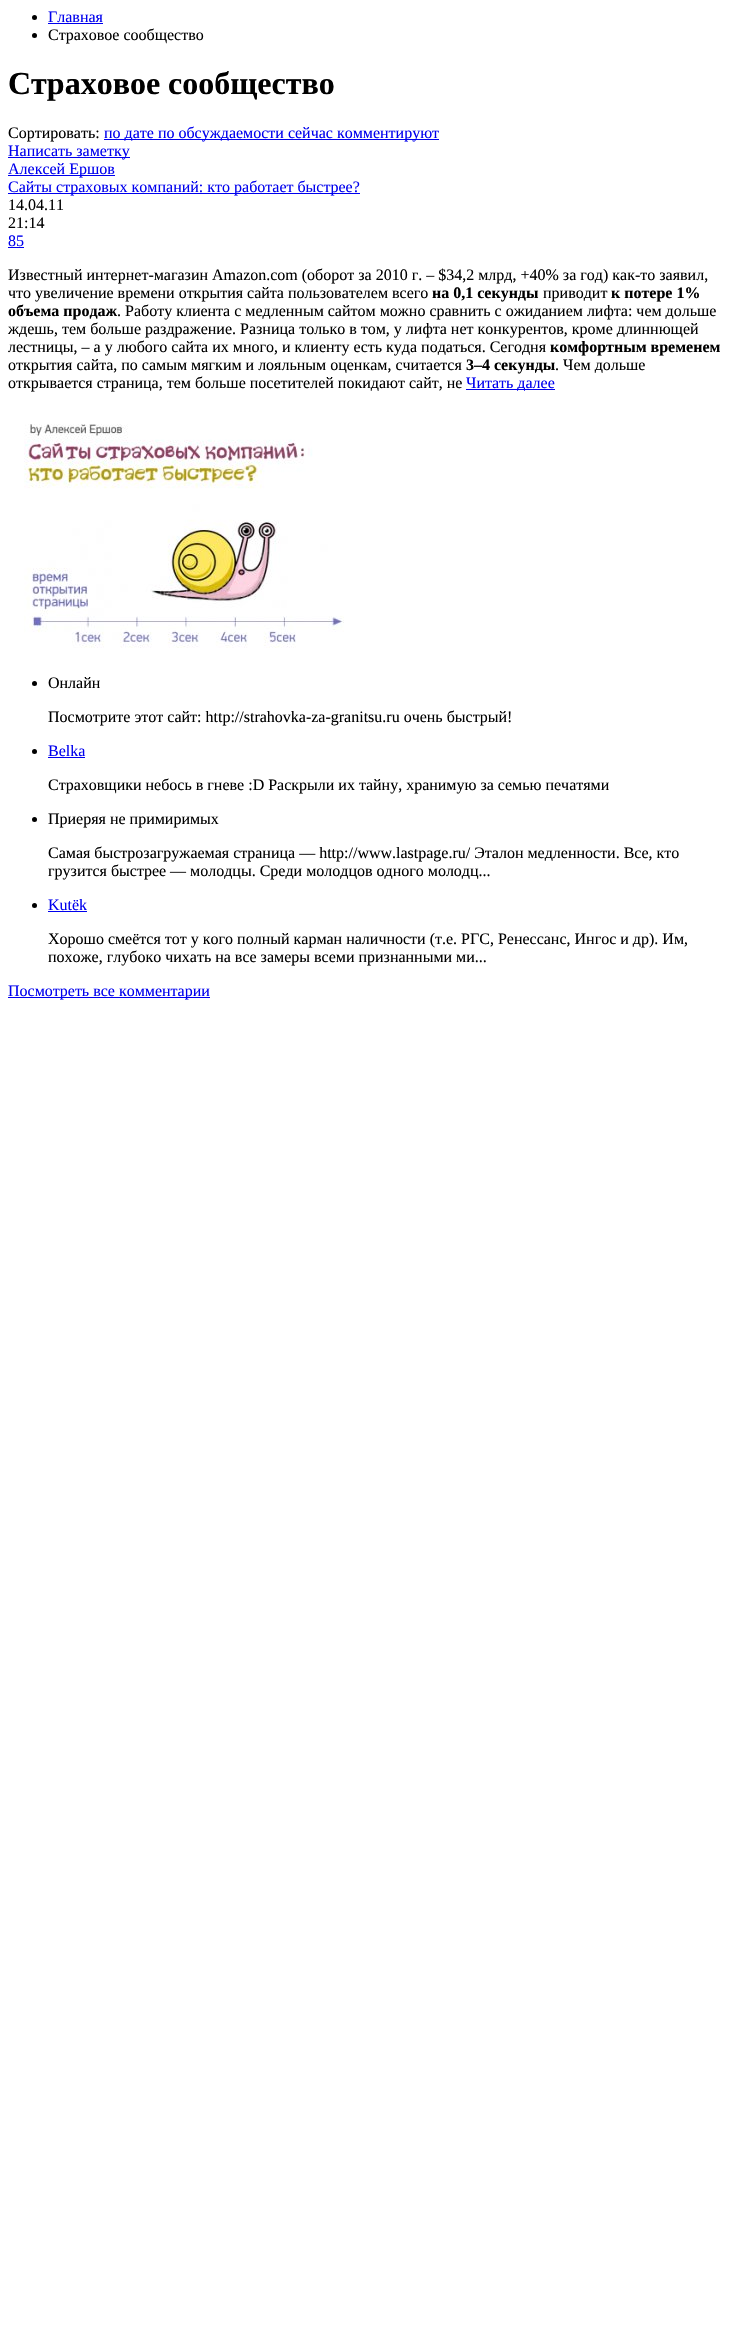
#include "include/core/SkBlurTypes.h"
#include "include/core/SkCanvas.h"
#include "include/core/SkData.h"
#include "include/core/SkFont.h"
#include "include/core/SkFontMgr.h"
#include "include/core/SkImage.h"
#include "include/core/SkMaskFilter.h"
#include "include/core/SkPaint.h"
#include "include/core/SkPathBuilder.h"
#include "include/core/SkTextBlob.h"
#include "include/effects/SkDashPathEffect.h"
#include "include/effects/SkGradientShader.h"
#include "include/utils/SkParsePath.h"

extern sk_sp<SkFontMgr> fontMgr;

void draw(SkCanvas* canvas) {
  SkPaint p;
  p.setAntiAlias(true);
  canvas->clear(SK_ColorWHITE);
  p.setColor(SK_ColorBLACK);
  canvas->drawCircle(34.5f, 17.5f, 2.5f, p);
  p.setColor(SkColorSetRGB(0, 0, 238));
  canvas->drawRect(SkRect::MakeLTRB(48, 23, 103, 24), p);
  p.setColor(SK_ColorBLACK);
  canvas->drawCircle(34.5f, 35.5f, 2.5f, p);
  p.setColor(SkColorSetRGB(0, 0, 238));
  canvas->drawRect(SkRect::MakeLTRB(104, 139, 439, 140), p);
  canvas->drawRect(SkRect::MakeLTRB(8, 157, 130, 158), p);
  canvas->drawRect(SkRect::MakeLTRB(8, 175, 115, 176), p);
  canvas->drawRect(SkRect::MakeLTRB(8, 193, 360, 194), p);
  canvas->drawRect(SkRect::MakeLTRB(8, 247, 24, 248), p);
  canvas->drawRect(SkRect::MakeLTRB(466, 389, 555, 390), p);
  canvas->drawImageRect(SkImages::DeferredFromEncodedData(SkData::MakeFromFileName("images/1.png")), SkRect::MakeLTRB(24, 424, 344, 648), SkSamplingOptions());
  p.setColor(SK_ColorBLACK);
  canvas->drawCircle(34.5f, 683.5f, 2.5f, p);
  canvas->drawCircle(34.5f, 751.5f, 2.5f, p);
  p.setColor(SkColorSetRGB(0, 0, 238));
  canvas->drawRect(SkRect::MakeLTRB(48, 757, 85, 758), p);
  p.setColor(SK_ColorBLACK);
  canvas->drawCircle(34.5f, 819.5f, 2.5f, p);
  canvas->drawCircle(34.5f, 905.5f, 2.5f, p);
  p.setColor(SkColorSetRGB(0, 0, 238));
  canvas->drawRect(SkRect::MakeLTRB(48, 911, 87, 912), p);
  canvas->drawRect(SkRect::MakeLTRB(8, 997, 210, 998), p);
  SkFont font1(fontMgr->matchFamilyStyle("Liberation Serif", SkFontStyle::Normal()), 16);
  font1.setSubpixel(true);
  canvas->drawString("Главная", 48, 22, font1, p);
  p.setColor(SK_ColorBLACK);
  canvas->drawString("Страховое сообщество", 48, 40, font1, p);
  SkFont font2(fontMgr->matchFamilyStyle("Liberation Serif", SkFontStyle::Bold()), 32);
  font2.setSubpixel(true);
  canvas->drawString("Страховое сообщество", 8, 94, font2, p);
  canvas->drawString("Сортировать:", 8, 138, font1, p);
  p.setColor(SkColorSetRGB(0, 0, 238));
  canvas->drawString("по дате по обсуждаемости сейчас комментируют", 104, 138, font1, p);
  canvas->drawString("Написать заметку", 8, 156, font1, p);
  canvas->drawString("Алексей Ершов", 8, 174, font1, p);
  canvas->drawString("Сайты страховых компаний: кто работает быстрее?", 8, 192, font1, p);
  p.setColor(SK_ColorBLACK);
  canvas->drawString("14.04.11", 8, 210, font1, p);
  canvas->drawString("21:14", 8, 228, font1, p);
  p.setColor(SkColorSetRGB(0, 0, 238));
  canvas->drawString("85", 8, 246, font1, p);
  p.setColor(SK_ColorBLACK);
  canvas->drawString("Известный интернет-магазин Amazon.com (оборот за 2010 г. – $34,2 млрд, +40% за год) как-то заявил,", 8, 280, font1, p);
  canvas->drawString("что увеличение времени открытия сайта пользователем всего", 8, 298, font1, p);
  SkFont font3(fontMgr->matchFamilyStyle("Liberation Serif", SkFontStyle::Bold()), 16);
  font3.setSubpixel(true);
  canvas->drawString("на 0,1 секунды", 432, 298, font3, p);
  canvas->drawString("приводит", 543, 298, font1, p);
  canvas->drawString("к потере 1%", 611, 298, font3, p);
  canvas->drawString("объема продаж", 8, 316, font3, p);
  canvas->drawString(". Работу клиента с медленным сайтом можно сравнить с ожиданием лифта: чем дольше", 117, 316, font1, p);
  canvas->drawString("ждешь, тем больше раздражение. Разница только в том, у лифта нет конкурентов, кроме длиннющей", 8, 334, font1, p);
  canvas->drawString("лестницы, – а у любого сайта их много, и клиенту есть куда податься. Сегодня", 8, 352, font1, p);
  canvas->drawString("комфортным временем", 550, 352, font3, p);
  canvas->drawString("открытия сайта, по самым мягким и лояльным оценкам, считается", 8, 370, font1, p);
  canvas->drawString("3–4 секунды", 466, 370, font3, p);
  canvas->drawString(". Чем дольше", 555, 370, font1, p);
  canvas->drawString("открывается страница, тем больше посетителей покидают сайт, не", 8, 388, font1, p);
  p.setColor(SkColorSetRGB(0, 0, 238));
  canvas->drawString("Читать далее", 466, 388, font1, p);
  p.setColor(SK_ColorBLACK);
  canvas->drawString("Онлайн", 48, 688, font1, p);
  canvas->drawString("Посмотрите этот сайт: http://strahovka-za-granitsu.ru очень быстрый!", 48, 722, font1, p);
  p.setColor(SkColorSetRGB(0, 0, 238));
  canvas->drawString("Belka", 48, 756, font1, p);
  p.setColor(SK_ColorBLACK);
  canvas->drawString("Страховщики небось в гневе :D Раскрыли их тайну, хранимую за семью печатями", 48, 790, font1, p);
  canvas->drawString("Приеряя не примиримых", 48, 824, font1, p);
  canvas->drawString("Самая быстрозагружаемая страница — http://www.lastpage.ru/ Эталон медленности. Все, кто", 48, 858, font1, p);
  canvas->drawString("грузится быстрее — молодцы. Среди молодцов одного молодц...", 48, 876, font1, p);
  p.setColor(SkColorSetRGB(0, 0, 238));
  canvas->drawString("Kutёk", 48, 910, font1, p);
  p.setColor(SK_ColorBLACK);
  canvas->drawString("Хорошо смеётся тот у кого полный карман наличности (т.е. РГС, Ренессанс, Ингос и др). Им,", 48, 944, font1, p);
  canvas->drawString("похоже, глубоко чихать на все замеры всеми признанными ми...", 48, 962, font1, p);
  p.setColor(SkColorSetRGB(0, 0, 238));
  canvas->drawString("Посмотреть все комментарии", 8, 996, font1, p);
}
